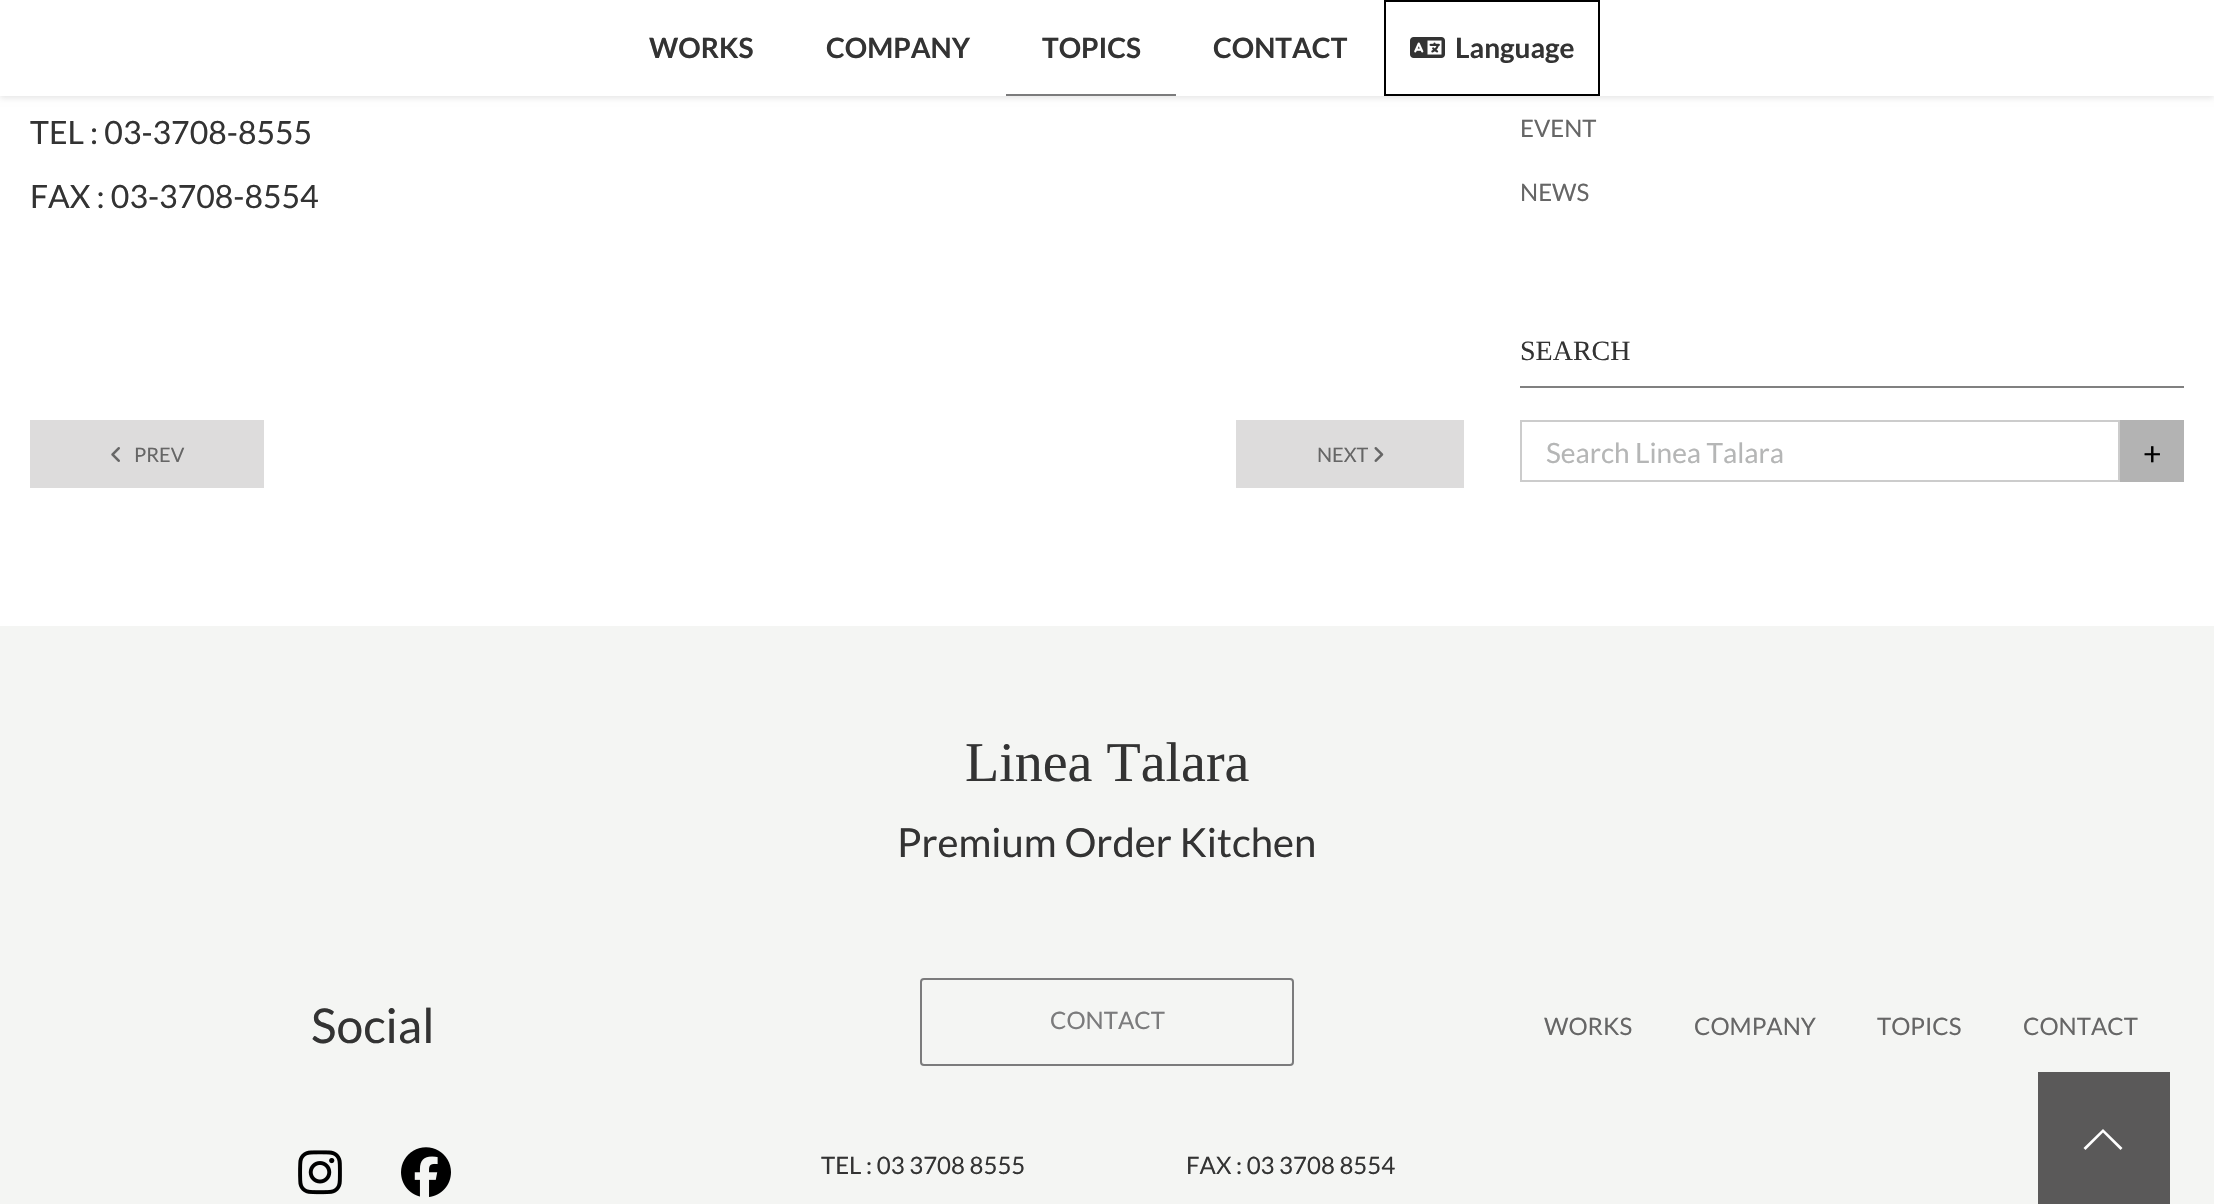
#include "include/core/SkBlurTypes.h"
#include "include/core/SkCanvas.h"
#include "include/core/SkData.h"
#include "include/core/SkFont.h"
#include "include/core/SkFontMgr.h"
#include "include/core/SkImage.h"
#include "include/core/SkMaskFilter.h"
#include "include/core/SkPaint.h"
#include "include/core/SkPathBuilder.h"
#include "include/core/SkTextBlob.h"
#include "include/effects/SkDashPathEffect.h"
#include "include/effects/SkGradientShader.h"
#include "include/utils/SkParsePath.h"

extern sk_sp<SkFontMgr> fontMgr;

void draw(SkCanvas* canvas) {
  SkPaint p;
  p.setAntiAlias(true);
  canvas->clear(SK_ColorWHITE);
  p.setColor(SkColorSetARGB(26, 0, 0, 0));
  p.setMaskFilter(SkMaskFilter::MakeBlur(kNormal_SkBlurStyle, 3));
  canvas->drawRect(SkRect::MakeLTRB(0, 2, 2214, 98), p);
  p.setMaskFilter(nullptr);
  p.setColor(SK_ColorWHITE);
  canvas->drawRect(SkRect::MakeLTRB(0, 0, 2214, 96), p);
  p.setColor(SkColorSetRGB(123, 123, 124));
  canvas->drawRect(SkRect::MakeLTRB(1006, 94, 1176, 96), p);
  p.setStyle(SkPaint::kStroke_Style);
  p.setStrokeWidth(2);
  p.setColor(SK_ColorBLACK);
  canvas->drawRect(SkRect::MakeLTRB(1385, 1, 1599, 95), p);
  canvas->drawImageRect(SkImages::DeferredFromEncodedData(SkData::MakeFromFileName("images/1.png")), SkRect::MakeLTRB(1410, 37, 1445, 58), SkSamplingOptions());
  p.setStyle(SkPaint::kFill_Style);
  p.setColor(SkColorSetRGB(221, 220, 220));
  canvas->drawRect(SkRect::MakeLTRB(30, 420, 264, 488), p);
  canvas->drawImageRect(SkImages::DeferredFromEncodedData(SkData::MakeFromFileName("images/2.png")), SkRect::MakeLTRB(111, 447, 120, 462), SkSamplingOptions());
  canvas->drawRect(SkRect::MakeLTRB(1236, 420, 1464, 488), p);
  canvas->drawImageRect(SkImages::DeferredFromEncodedData(SkData::MakeFromFileName("images/3.png")), SkRect::MakeLTRB(1374, 447, 1384, 462), SkSamplingOptions());
  p.setColor(SkColorSetRGB(128, 128, 128));
  canvas->drawRect(SkRect::MakeLTRB(1520, 386, 2184, 388), p);
  p.setStyle(SkPaint::kStroke_Style);
  p.setColor(SkColorSetRGB(204, 204, 204));
  canvas->drawRect(SkRect::MakeLTRB(1521, 421, 2119, 481), p);
  p.setStyle(SkPaint::kFill_Style);
  p.setColor(SkColorSetRGB(179, 179, 179));
  canvas->drawRect(SkRect::MakeLTRB(2120, 420, 2184, 482), p);
  p.setColor(SkColorSetRGB(244, 245, 243));
  canvas->drawRect(SkRect::MakeLTRB(0, 626, 2214, 1204), p);
  canvas->drawImageRect(SkImages::DeferredFromEncodedData(SkData::MakeFromFileName("images/4.png")), SkRect::MakeLTRB(298, 1150, 342, 1195), SkSamplingOptions());
  canvas->drawImageRect(SkImages::DeferredFromEncodedData(SkData::MakeFromFileName("images/5.png")), SkRect::MakeLTRB(401, 1147, 451, 1197), SkSamplingOptions());
  p.setStyle(SkPaint::kStroke_Style);
  p.setColor(SkColorSetRGB(123, 123, 124));
  canvas->drawRoundRect(SkRect::MakeLTRB(921, 979, 1293, 1065), 3, 3, p);
  p.setStyle(SkPaint::kFill_Style);
  p.setColor(SkColorSetRGB(90, 89, 89));
  canvas->drawRect(SkRect::MakeLTRB(2038, 1072, 2170, 1204), p);
  p.setColor(SK_ColorWHITE);
  canvas->drawPath(SkPathBuilder().moveTo(2122.5f, 1148).lineTo(2120.5f, 1150).lineTo(2103, 1132.5f).lineTo(2085.5f, 1150).lineTo(2083.5f, 1148).lineTo(2103, 1129).close().detach(), p);
  SkFont font1(fontMgr->matchFamilyStyle("Lato", SkFontStyle::Bold()), 28);
  font1.setSubpixel(true);
  p.setColor(SkColorSetRGB(51, 51, 51));
  canvas->drawString("WORKS", 649, 58, font1, p);
  canvas->drawString("COMPANY", 826, 58, font1, p);
  canvas->drawString("TOPICS", 1042, 58, font1, p);
  canvas->drawString("CONTACT", 1213, 58, font1, p);
  canvas->drawString("Language", 1455, 58, font1, p);
  SkFont font2(fontMgr->matchFamilyStyle("Lato", SkFontStyle::Normal()), 32);
  font2.setSubpixel(true);
  canvas->drawString("TEL : 03-3708-8555", 30, 144, font2, p);
  canvas->drawString("FAX : 03-3708-8554", 30, 208, font2, p);
  SkFont font3(fontMgr->matchFamilyStyle("Lato", SkFontStyle::Normal()), 20);
  font3.setSubpixel(true);
  p.setColor(SkColorSetRGB(102, 102, 102));
  canvas->drawString("PREV", 134, 462, font3, p);
  canvas->drawString("NEXT", 1317, 462, font3, p);
  SkFont font4(fontMgr->matchFamilyStyle("Lato", SkFontStyle::Normal()), 24);
  font4.setSubpixel(true);
  canvas->drawString("EVENT", 1520, 137, font4, p);
  canvas->drawString("NEWS", 1520, 201, font4, p);
  SkFont font5(fontMgr->matchFamilyStyle("Liberation Serif", SkFontStyle::Normal()), 28);
  font5.setSubpixel(true);
  p.setColor(SkColorSetRGB(51, 51, 51));
  canvas->drawString("SEARCH", 1520, 360, font5, p);
  SkFont font6(fontMgr->matchFamilyStyle("Lato", SkFontStyle::Normal()), 28);
  font6.setSubpixel(true);
  p.setColor(SkColorSetRGB(181, 182, 182));
  canvas->drawString("Search Linea Talara", 1546, 463, font6, p);
  p.setColor(SK_ColorBLACK);
  canvas->drawString("+", 2143, 465, font2, p);
  SkFont font7(fontMgr->matchFamilyStyle("Liberation Serif", SkFontStyle::Normal()), 56);
  font7.setSubpixel(true);
  p.setColor(SkColorSetRGB(51, 51, 51));
  canvas->drawString("Linea Talara", 965, 781, font7, p);
  SkFont font8(fontMgr->matchFamilyStyle("Lato", SkFontStyle::Normal()), 40);
  font8.setSubpixel(true);
  canvas->drawString("Premium Order Kitchen", 897, 857, font8, p);
  SkFont font9(fontMgr->matchFamilyStyle("Lato", SkFontStyle::Normal()), 48);
  font9.setSubpixel(true);
  canvas->drawString("Social", 311, 1043, font9, p);
  p.setColor(SkColorSetRGB(123, 123, 124));
  canvas->drawString("CONTACT", 1050, 1029, font4, p);
  p.setColor(SkColorSetRGB(51, 51, 51));
  canvas->drawString("TEL : 03 3708 8555", 821, 1174, font4, p);
  canvas->drawString("FAX : 03 3708 8554", 1186, 1174, font4, p);
  p.setColor(SkColorSetRGB(102, 102, 102));
  canvas->drawString("WORKS", 1544, 1035, font4, p);
  canvas->drawString("COMPANY", 1694, 1035, font4, p);
  canvas->drawString("TOPICS", 1877, 1035, font4, p);
  canvas->drawString("CONTACT", 2023, 1035, font4, p);
}
